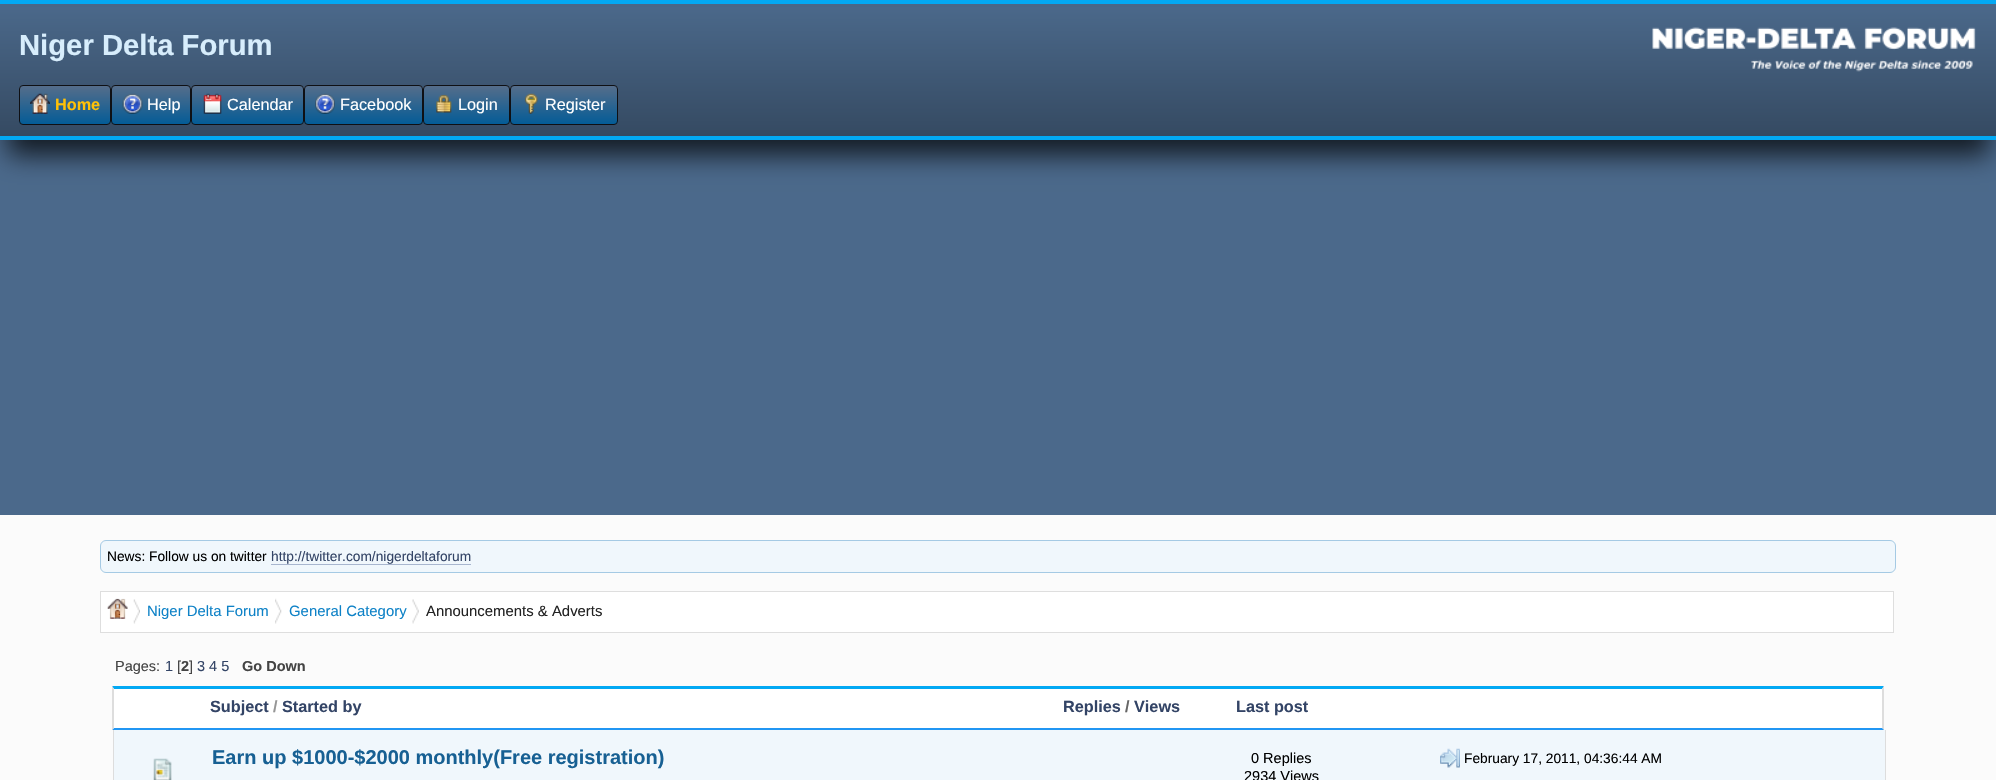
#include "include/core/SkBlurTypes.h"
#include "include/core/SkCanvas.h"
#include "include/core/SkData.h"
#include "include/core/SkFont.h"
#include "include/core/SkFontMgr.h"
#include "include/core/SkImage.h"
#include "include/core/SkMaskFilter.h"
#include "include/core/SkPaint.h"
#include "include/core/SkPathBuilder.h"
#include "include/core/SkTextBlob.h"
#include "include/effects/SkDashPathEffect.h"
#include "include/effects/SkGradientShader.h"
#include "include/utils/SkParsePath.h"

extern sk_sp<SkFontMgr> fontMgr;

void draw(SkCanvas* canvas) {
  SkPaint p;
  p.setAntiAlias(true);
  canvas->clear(SkColorSetRGB(75, 105, 139));
  p.setColor(SkColorSetARGB(191, 0, 0, 0));
  p.setMaskFilter(SkMaskFilter::MakeBlur(kNormal_SkBlurStyle, 12.5f));
  canvas->drawRect(SkRect::MakeLTRB(8, 30, 1989, 155), p);
  p.setMaskFilter(nullptr);
  {
    const SkColor colors[] = {SkColorSetRGB(75, 105, 139), SkColorSetRGB(53, 74, 98)};
    const float stops[] = {0, 1};
    const SkPoint ends[] = {{998, 3.7f}, {998, 136}};
    p.setShader(SkGradientShader::MakeLinear(ends, colors, stops, 2, SkTileMode::kClamp));
    p.setAlpha(255);
  }
  canvas->drawRect(SkRect::MakeLTRB(0, 7, 1996, 136), p);
  p.setShader(nullptr);
  p.setColor(SkColorSetRGB(3, 169, 244));
  canvas->drawRect(SkRect::MakeLTRB(0, 0, 1996, 4), p);
  canvas->drawRect(SkRect::MakeLTRB(0, 136, 1996, 140), p);
  canvas->drawImageRect(SkImages::DeferredFromEncodedData(SkData::MakeFromFileName("images/1.png")), SkRect::MakeLTRB(1652, 27, 1976, 72), SkSamplingOptions());
  canvas->save();
  canvas->clipPath(SkPathBuilder().moveTo(23, 85).lineTo(107, 85).cubicTo(109, 85, 111, 87, 111, 89).lineTo(111, 121).cubicTo(111, 123, 109, 125, 107, 125).lineTo(23, 125).cubicTo(21, 125, 19, 123, 19, 121).lineTo(19, 89).cubicTo(19, 87, 21, 85, 23, 85).close().detach(), true);
  {
    const SkColor colors[] = {SkColorSetRGB(85, 109, 138), SkColorSetRGB(4, 92, 151)};
    const float stops[] = {0, 1};
    const SkPoint ends[] = {{65, 86}, {65, 124}};
    p.setShader(SkGradientShader::MakeLinear(ends, colors, stops, 2, SkTileMode::kClamp));
    p.setAlpha(255);
  }
  canvas->drawRect(SkRect::MakeLTRB(19, 86, 111, 124), p);
  canvas->restore();
  p.setStyle(SkPaint::kStroke_Style);
  p.setStrokeWidth(1);
  p.setShader(nullptr);
  p.setColor(SkColorSetRGB(15, 16, 20));
  canvas->drawRoundRect(SkRect::MakeLTRB(19.5f, 85.5f, 110.5f, 124.5f), 3.5f, 3.5f, p);
  canvas->drawImageRect(SkImages::DeferredFromEncodedData(SkData::MakeFromFileName("images/2.png")), SkRect::MakeLTRB(30, 93, 50, 114), SkSamplingOptions());
  canvas->save();
  canvas->clipPath(SkPathBuilder().moveTo(115, 85).lineTo(187, 85).cubicTo(189, 85, 191, 87, 191, 89).lineTo(191, 121).cubicTo(191, 123, 189, 125, 187, 125).lineTo(115, 125).cubicTo(113, 125, 111, 123, 111, 121).lineTo(111, 89).cubicTo(111, 87, 113, 85, 115, 85).close().detach(), true);
  p.setStyle(SkPaint::kFill_Style);
  {
    const SkColor colors[] = {SkColorSetRGB(85, 109, 138), SkColorSetRGB(4, 92, 151)};
    const float stops[] = {0, 1};
    const SkPoint ends[] = {{151, 86}, {151, 124}};
    p.setShader(SkGradientShader::MakeLinear(ends, colors, stops, 2, SkTileMode::kClamp));
    p.setAlpha(255);
  }
  canvas->drawRect(SkRect::MakeLTRB(111, 86, 191, 124), p);
  canvas->restore();
  p.setStyle(SkPaint::kStroke_Style);
  p.setShader(nullptr);
  p.setColor(SkColorSetRGB(15, 16, 20));
  canvas->drawRoundRect(SkRect::MakeLTRB(111.5f, 85.5f, 190.5f, 124.5f), 3.5f, 3.5f, p);
  canvas->drawImageRect(SkImages::DeferredFromEncodedData(SkData::MakeFromFileName("images/3.png")), SkRect::MakeLTRB(122, 93, 143, 114), SkSamplingOptions());
  canvas->save();
  canvas->clipPath(SkPathBuilder().moveTo(195, 85).lineTo(300, 85).cubicTo(302, 85, 304, 87, 304, 89).lineTo(304, 121).cubicTo(304, 123, 302, 125, 300, 125).lineTo(195, 125).cubicTo(193, 125, 191, 123, 191, 121).lineTo(191, 89).cubicTo(191, 87, 193, 85, 195, 85).close().detach(), true);
  p.setStyle(SkPaint::kFill_Style);
  {
    const SkColor colors[] = {SkColorSetRGB(85, 109, 138), SkColorSetRGB(4, 92, 151)};
    const float stops[] = {0, 1};
    const SkPoint ends[] = {{248, 86}, {248, 124}};
    p.setShader(SkGradientShader::MakeLinear(ends, colors, stops, 2, SkTileMode::kClamp));
    p.setAlpha(255);
  }
  canvas->drawRect(SkRect::MakeLTRB(191, 86, 304, 124), p);
  canvas->restore();
  p.setStyle(SkPaint::kStroke_Style);
  p.setShader(nullptr);
  p.setColor(SkColorSetRGB(15, 16, 20));
  canvas->drawRoundRect(SkRect::MakeLTRB(191.5f, 85.5f, 303.5f, 124.5f), 3.5f, 3.5f, p);
  canvas->drawImageRect(SkImages::DeferredFromEncodedData(SkData::MakeFromFileName("images/4.png")), SkRect::MakeLTRB(203, 93, 222, 114), SkSamplingOptions());
  canvas->save();
  canvas->clipPath(SkPathBuilder().moveTo(308, 85).lineTo(419, 85).cubicTo(421, 85, 423, 87, 423, 89).lineTo(423, 121).cubicTo(423, 123, 421, 125, 419, 125).lineTo(308, 125).cubicTo(306, 125, 304, 123, 304, 121).lineTo(304, 89).cubicTo(304, 87, 306, 85, 308, 85).close().detach(), true);
  p.setStyle(SkPaint::kFill_Style);
  {
    const SkColor colors[] = {SkColorSetRGB(85, 109, 138), SkColorSetRGB(4, 92, 151)};
    const float stops[] = {0, 1};
    const SkPoint ends[] = {{363, 86}, {363, 124}};
    p.setShader(SkGradientShader::MakeLinear(ends, colors, stops, 2, SkTileMode::kClamp));
    p.setAlpha(255);
  }
  canvas->drawRect(SkRect::MakeLTRB(304, 86, 423, 124), p);
  canvas->restore();
  p.setStyle(SkPaint::kStroke_Style);
  p.setShader(nullptr);
  p.setColor(SkColorSetRGB(15, 16, 20));
  canvas->drawRoundRect(SkRect::MakeLTRB(304.5f, 85.5f, 422.5f, 124.5f), 3.5f, 3.5f, p);
  canvas->drawImageRect(SkImages::DeferredFromEncodedData(SkData::MakeFromFileName("images/5.png")), SkRect::MakeLTRB(315, 93, 335, 114), SkSamplingOptions());
  canvas->save();
  canvas->clipPath(SkPathBuilder().moveTo(427, 85).lineTo(506, 85).cubicTo(508, 85, 510, 87, 510, 89).lineTo(510, 121).cubicTo(510, 123, 508, 125, 506, 125).lineTo(427, 125).cubicTo(425, 125, 423, 123, 423, 121).lineTo(423, 89).cubicTo(423, 87, 425, 85, 427, 85).close().detach(), true);
  p.setStyle(SkPaint::kFill_Style);
  {
    const SkColor colors[] = {SkColorSetRGB(85, 109, 138), SkColorSetRGB(4, 92, 151)};
    const float stops[] = {0, 1};
    const SkPoint ends[] = {{466, 86}, {466, 124}};
    p.setShader(SkGradientShader::MakeLinear(ends, colors, stops, 2, SkTileMode::kClamp));
    p.setAlpha(255);
  }
  canvas->drawRect(SkRect::MakeLTRB(423, 86, 510, 124), p);
  canvas->restore();
  p.setStyle(SkPaint::kStroke_Style);
  p.setShader(nullptr);
  p.setColor(SkColorSetRGB(15, 16, 20));
  canvas->drawRoundRect(SkRect::MakeLTRB(423.5f, 85.5f, 509.5f, 124.5f), 3.5f, 3.5f, p);
  canvas->drawImageRect(SkImages::DeferredFromEncodedData(SkData::MakeFromFileName("images/6.png")), SkRect::MakeLTRB(436, 94, 452, 113), SkSamplingOptions());
  canvas->save();
  canvas->clipPath(SkPathBuilder().moveTo(514, 85).lineTo(614, 85).cubicTo(616, 85, 618, 87, 618, 89).lineTo(618, 121).cubicTo(618, 123, 616, 125, 614, 125).lineTo(514, 125).cubicTo(512, 125, 510, 123, 510, 121).lineTo(510, 89).cubicTo(510, 87, 512, 85, 514, 85).close().detach(), true);
  p.setStyle(SkPaint::kFill_Style);
  {
    const SkColor colors[] = {SkColorSetRGB(85, 109, 138), SkColorSetRGB(4, 92, 151)};
    const float stops[] = {0, 1};
    const SkPoint ends[] = {{564, 86}, {564, 124}};
    p.setShader(SkGradientShader::MakeLinear(ends, colors, stops, 2, SkTileMode::kClamp));
    p.setAlpha(255);
  }
  canvas->drawRect(SkRect::MakeLTRB(510, 86, 618, 124), p);
  canvas->restore();
  p.setStyle(SkPaint::kStroke_Style);
  p.setShader(nullptr);
  p.setColor(SkColorSetRGB(15, 16, 20));
  canvas->drawRoundRect(SkRect::MakeLTRB(510.5f, 85.5f, 617.5f, 124.5f), 3.5f, 3.5f, p);
  canvas->drawImageRect(SkImages::DeferredFromEncodedData(SkData::MakeFromFileName("images/7.png")), SkRect::MakeLTRB(524, 93, 538, 114), SkSamplingOptions());
  p.setStyle(SkPaint::kFill_Style);
  p.setColor(SkColorSetRGB(251, 251, 251));
  canvas->drawRect(SkRect::MakeLTRB(0, 515, 1996, 780), p);
  p.setColor(SkColorSetRGB(240, 247, 252));
  canvas->drawRoundRect(SkRect::MakeLTRB(100.5f, 540.5f, 1895.5f, 572.5f), 5.5f, 5.5f, p);
  p.setStyle(SkPaint::kStroke_Style);
  p.setColor(SkColorSetRGB(165, 202, 228));
  canvas->drawRoundRect(SkRect::MakeLTRB(100.5f, 540.5f, 1895.5f, 572.5f), 5.5f, 5.5f, p);
  p.setStyle(SkPaint::kFill_Style);
  p.setColor(SkColorSetRGB(168, 182, 207));
  canvas->drawRect(SkRect::MakeLTRB(271, 564, 471, 565), p);
  p.setColor(SK_ColorWHITE);
  canvas->drawRect(SkRect::MakeLTRB(100.5f, 591.5f, 1893.5f, 632.5f), p);
  p.setStyle(SkPaint::kStroke_Style);
  p.setColor(SkColorSetRGB(222, 222, 222));
  canvas->drawRect(SkRect::MakeLTRB(100.5f, 591.5f, 1893.5f, 632.5f), p);
  canvas->drawImageRect(SkImages::DeferredFromEncodedData(SkData::MakeFromFileName("images/8.png")), SkRect::MakeLTRB(133, 599, 140, 624), SkSamplingOptions());
  canvas->drawImageRect(SkImages::DeferredFromEncodedData(SkData::MakeFromFileName("images/9.png")), SkRect::MakeLTRB(107, 598, 128, 619), SkSamplingOptions());
  canvas->drawImageRect(SkImages::DeferredFromEncodedData(SkData::MakeFromFileName("images/10.png")), SkRect::MakeLTRB(275, 598, 282, 624), SkSamplingOptions());
  canvas->drawImageRect(SkImages::DeferredFromEncodedData(SkData::MakeFromFileName("images/11.png")), SkRect::MakeLTRB(412, 599, 419, 624), SkSamplingOptions());
  p.setStyle(SkPaint::kFill_Style);
  p.setColor(SK_ColorWHITE);
  canvas->drawRect(SkRect::MakeLTRB(114, 689, 1882, 728), p);
  p.setColor(SkColorSetRGB(3, 169, 244));
  canvas->drawPath(SkPathBuilder().moveTo(112, 686).lineTo(1884, 686).lineTo(1882, 689).lineTo(114, 689).close().detach(), p);
  p.setColor(SkColorSetRGB(221, 221, 221));
  canvas->drawPath(SkPathBuilder().moveTo(1884, 686).lineTo(1884, 730).lineTo(1882, 728).lineTo(1882, 689).close().detach(), p);
  p.setColor(SkColorSetRGB(33, 150, 243));
  canvas->drawPath(SkPathBuilder().moveTo(1884, 730).lineTo(112, 730).lineTo(114, 728).lineTo(1882, 728).close().detach(), p);
  p.setColor(SkColorSetRGB(221, 221, 221));
  canvas->drawPath(SkPathBuilder().moveTo(112, 730).lineTo(112, 686).lineTo(114, 689).lineTo(114, 728).close().detach(), p);
  p.setColor(SkColorSetRGB(240, 247, 252));
  canvas->drawRect(SkRect::MakeLTRB(114, 730, 1885, 780), p);
  p.setColor(SkColorSetRGB(221, 221, 221));
  canvas->drawRect(SkRect::MakeLTRB(1885, 730, 1886, 780), p);
  canvas->drawRect(SkRect::MakeLTRB(113, 730, 114, 780), p);
  canvas->drawImageRect(SkImages::DeferredFromEncodedData(SkData::MakeFromFileName("images/12.png")), SkRect::MakeLTRB(153, 758, 172, 780), SkSamplingOptions());
  canvas->drawImageRect(SkImages::DeferredFromEncodedData(SkData::MakeFromFileName("images/13.png")), SkRect::MakeLTRB(1440, 748, 1460, 768), SkSamplingOptions());
  SkFont font1(fontMgr->matchFamilyStyle("Liberation Sans", SkFontStyle::Bold()), 29.25f);
  font1.setSubpixel(true);
  p.setColor(SkColorSetRGB(215, 237, 252));
  canvas->drawString("Niger Delta Forum", 19, 55, font1, p);
  SkFont font2(fontMgr->matchFamilyStyle("Liberation Sans", SkFontStyle::Bold()), 16.25f);
  font2.setSubpixel(true);
  p.setColor(SkColorSetRGB(255, 193, 7));
  canvas->drawString("Home", 55, 110, font2, p);
  SkFont font3(fontMgr->matchFamilyStyle("Liberation Sans", SkFontStyle::Normal()), 16.25f);
  font3.setSubpixel(true);
  p.setColor(SK_ColorWHITE);
  canvas->drawString("Help", 147, 110, font3, p);
  canvas->drawString("Calendar", 227, 110, font3, p);
  canvas->drawString("Facebook", 340, 110, font3, p);
  canvas->drawString("Login", 458, 110, font3, p);
  canvas->drawString("Register", 545, 110, font3, p);
  SkFont font4(fontMgr->matchFamilyStyle("Liberation Sans", SkFontStyle::Normal()), 13.75f);
  font4.setSubpixel(true);
  p.setColor(SK_ColorBLACK);
  canvas->drawString("News: Follow us on twitter", 107, 561, font4, p);
  p.setColor(SkColorSetRGB(51, 68, 102));
  canvas->drawString("http://twitter.com/nigerdeltaforum", 271, 561, font4, p);
  SkFont font5(fontMgr->matchFamilyStyle("Liberation Sans", SkFontStyle::Normal()), 14.9f);
  font5.setSubpixel(true);
  p.setColor(SkColorSetRGB(14, 130, 199));
  canvas->drawString("Niger Delta Forum", 147, 616, font5, p);
  canvas->drawString("General Category", 289, 616, font5, p);
  p.setColor(SkColorSetRGB(34, 34, 34));
  canvas->drawString("Announcements & Adverts", 426, 616, font5, p);
  SkFont font6(fontMgr->matchFamilyStyle("Liberation Sans", SkFontStyle::Normal()), 14.5f);
  font6.setSubpixel(true);
  p.setColor(SkColorSetRGB(68, 68, 68));
  canvas->drawString("Pages:", 115, 671, font6, p);
  p.setColor(SkColorSetRGB(51, 68, 102));
  canvas->drawString("1", 165, 671, font6, p);
  p.setColor(SkColorSetRGB(68, 68, 68));
  canvas->drawString("[", 177, 671, font6, p);
  SkFont font7(fontMgr->matchFamilyStyle("Liberation Sans", SkFontStyle::Bold()), 14.5f);
  font7.setSubpixel(true);
  canvas->drawString("2", 181, 671, font7, p);
  canvas->drawString("]", 189, 671, font6, p);
  p.setColor(SkColorSetRGB(51, 68, 102));
  canvas->drawString("3 4 5", 197, 671, font6, p);
  p.setColor(SkColorSetRGB(68, 68, 68));
  canvas->drawString("Go Down", 242, 671, font7, p);
  p.setColor(SkColorSetRGB(51, 68, 102));
  canvas->drawString("Subject", 210, 712, font2, p);
  p.setColor(SkColorSetRGB(150, 150, 150));
  canvas->drawString("/", 273, 712, font2, p);
  p.setColor(SkColorSetRGB(51, 68, 102));
  canvas->drawString("Started by", 282, 712, font2, p);
  canvas->drawString("Replies", 1063, 712, font2, p);
  p.setColor(SkColorSetRGB(102, 102, 102));
  canvas->drawString("/", 1125, 712, font2, p);
  p.setColor(SkColorSetRGB(51, 68, 102));
  canvas->drawString("Views", 1134, 712, font2, p);
  canvas->drawString("Last post", 1236, 712, font2, p);
  SkFont font8(fontMgr->matchFamilyStyle("Liberation Sans", SkFontStyle::Bold()), 20);
  font8.setSubpixel(true);
  p.setColor(SkColorSetRGB(23, 96, 147));
  canvas->drawString("Earn up $1000-$2000 monthly(Free registration)", 212, 764, font8, p);
  p.setColor(SK_ColorBLACK);
  canvas->drawString("0 Replies", 1251, 763, font6, p);
  canvas->drawString("2934 Views", 1244, 781, font6, p);
  canvas->drawString("February 17, 2011, 04:36:44 AM", 1464, 763, font4, p);
}
